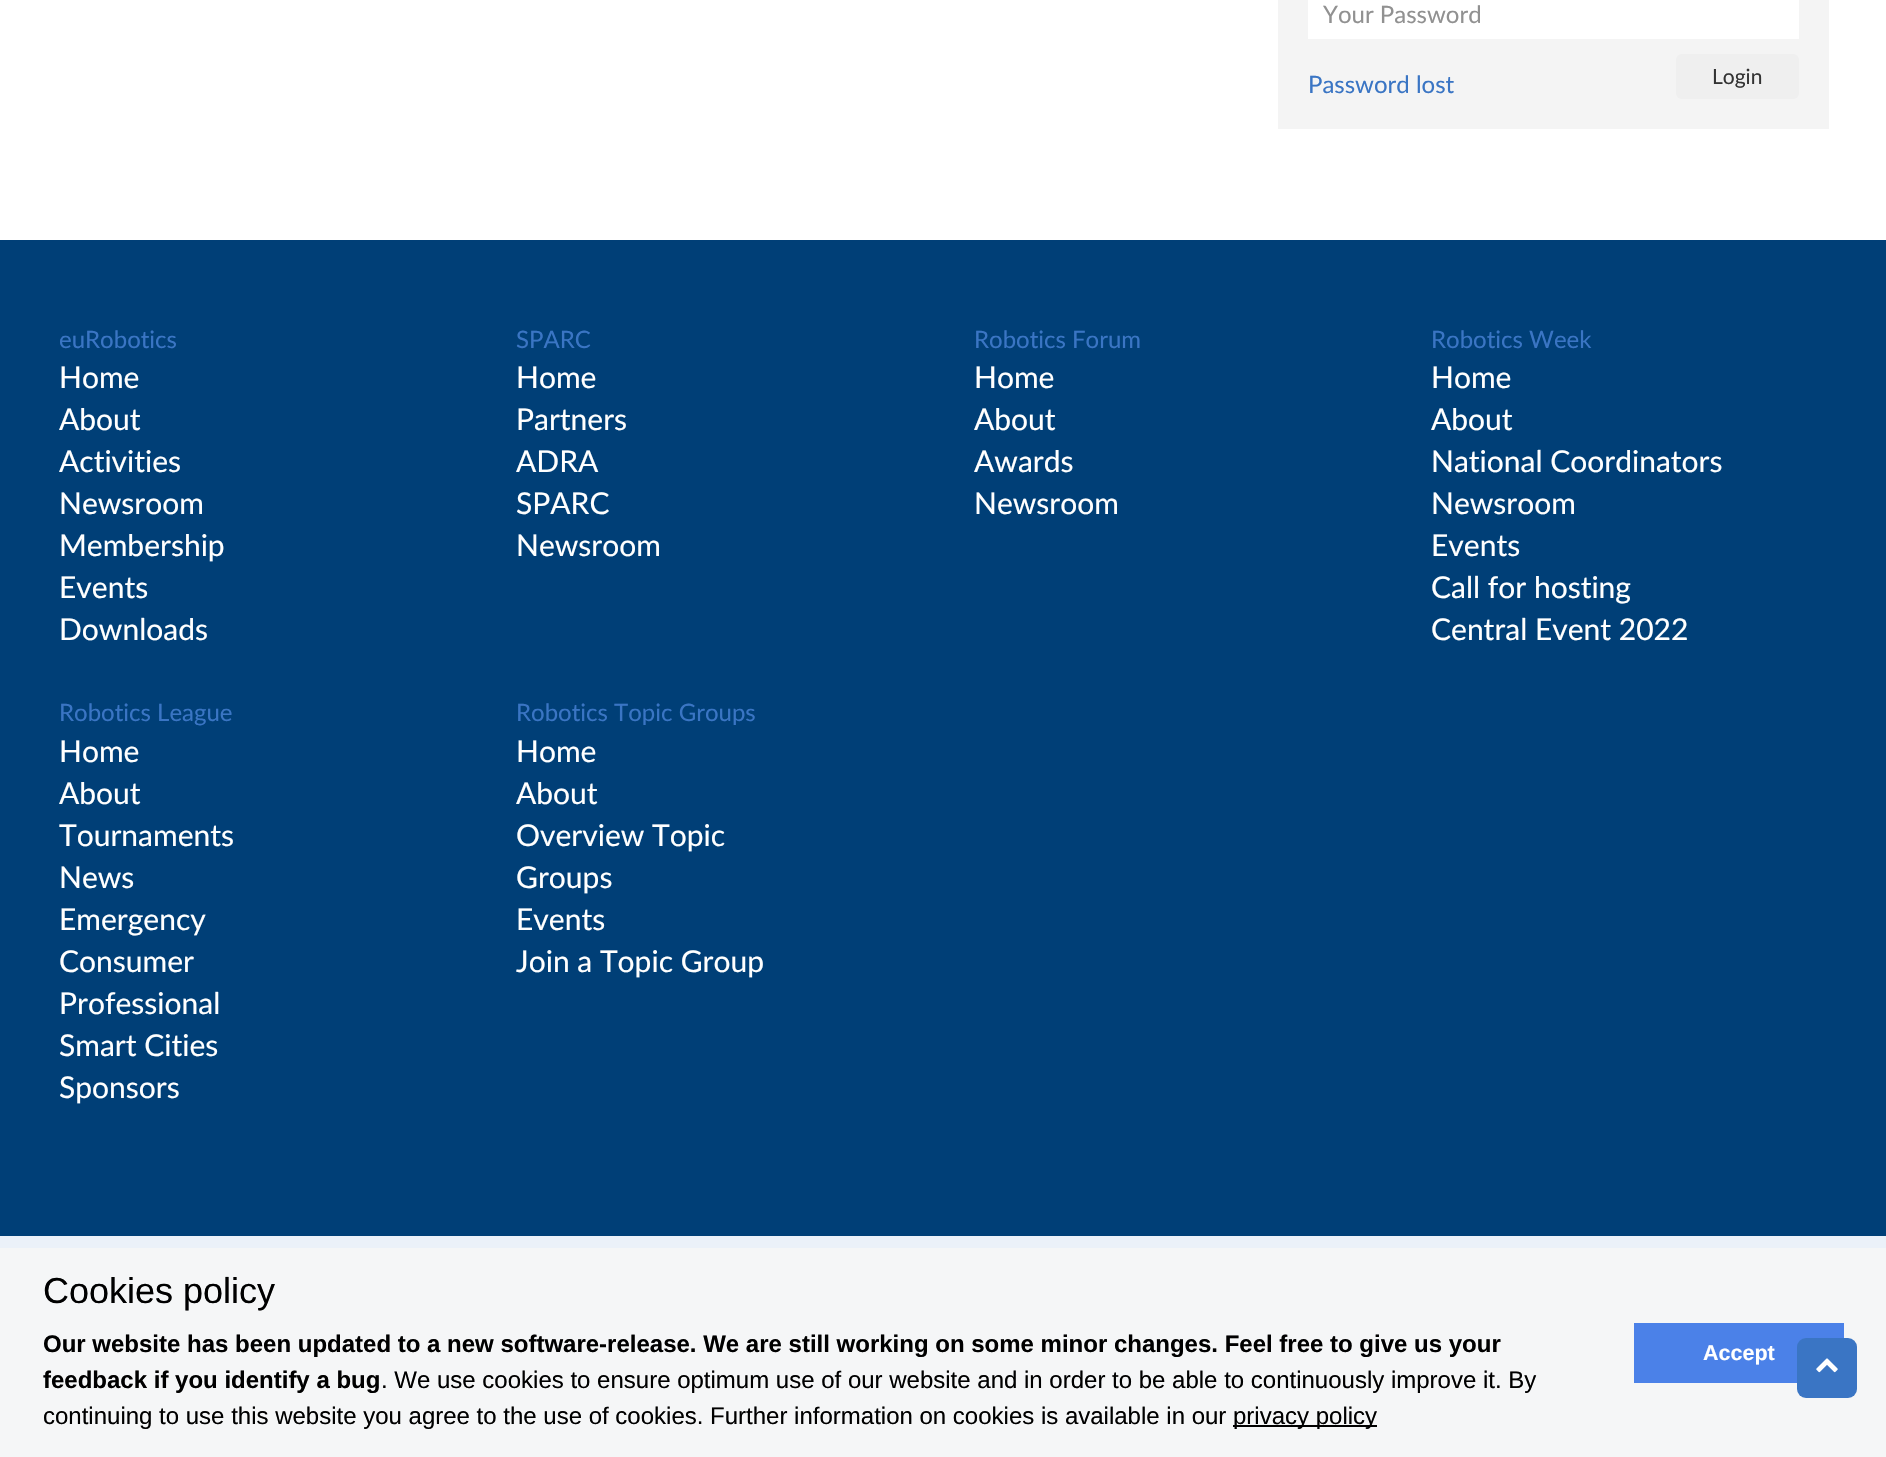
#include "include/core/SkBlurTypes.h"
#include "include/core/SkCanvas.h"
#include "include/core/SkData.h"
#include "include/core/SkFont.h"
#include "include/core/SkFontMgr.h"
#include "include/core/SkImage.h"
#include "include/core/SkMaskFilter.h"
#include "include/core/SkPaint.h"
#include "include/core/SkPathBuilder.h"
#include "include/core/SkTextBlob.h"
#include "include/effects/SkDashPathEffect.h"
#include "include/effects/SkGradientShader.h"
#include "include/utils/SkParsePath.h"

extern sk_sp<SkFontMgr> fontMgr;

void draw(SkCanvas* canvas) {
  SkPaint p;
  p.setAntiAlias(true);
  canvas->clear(SK_ColorWHITE);
  p.setColor(SkColorSetRGB(244, 244, 244));
  canvas->drawRect(SkRect::MakeLTRB(1278, 0, 1829, 129), p);
  p.setColor(SK_ColorWHITE);
  canvas->drawRect(SkRect::MakeLTRB(1308, 0, 1799, 39), p);
  p.setColor(SkColorSetRGB(239, 239, 239));
  canvas->drawRoundRect(SkRect::MakeLTRB(1676, 54, 1799, 99), 6, 6, p);
  p.setColor(SkColorSetRGB(0, 63, 119));
  canvas->drawRect(SkRect::MakeLTRB(0, 240, 1886, 1236), p);
  p.setColor(SkColorSetRGB(235, 241, 249));
  canvas->drawRect(SkRect::MakeLTRB(0, 1236, 1886, 1248), p);
  p.setColor(SkColorSetRGB(245, 246, 247));
  canvas->drawRect(SkRect::MakeLTRB(0, 1248, 1886, 1457), p);
  p.setColor(SkColorSetRGB(75, 129, 232));
  canvas->drawRect(SkRect::MakeLTRB(1634, 1323, 1844, 1383), p);
  p.setColor(SkColorSetRGB(58, 117, 196));
  canvas->drawRoundRect(SkRect::MakeLTRB(1797, 1338, 1857, 1398), 9, 9, p);
  canvas->drawImageRect(SkImages::DeferredFromEncodedData(SkData::MakeFromFileName("images/1.png")), SkRect::MakeLTRB(1816, 1358, 1838, 1373), SkSamplingOptions());
  p.setColor(SK_ColorBLACK);
  canvas->drawRect(SkRect::MakeLTRB(1233, 1425, 1377, 1427), p);
  SkFont font1(fontMgr->matchFamilyStyle("Lato", SkFontStyle::Normal()), 24);
  font1.setSubpixel(true);
  p.setColor(SkColorSetRGB(145, 145, 145));
  canvas->drawString("Your Password", 1323, 23, font1, p);
  p.setColor(SkColorSetRGB(58, 117, 196));
  canvas->drawString("Password lost", 1308, 93, font1, p);
  SkFont font2(fontMgr->matchFamilyStyle("Lato", SkFontStyle::Normal()), 21);
  font2.setSubpixel(true);
  p.setColor(SkColorSetRGB(51, 51, 51));
  canvas->drawString("Login", 1712, 84, font2, p);
  p.setColor(SkColorSetRGB(58, 117, 196));
  canvas->drawString("euRobotics", 59, 348, font1, p);
  SkFont font3(fontMgr->matchFamilyStyle("Lato", SkFontStyle::Normal()), 30);
  font3.setSubpixel(true);
  p.setColor(SK_ColorWHITE);
  canvas->drawString("Home", 59, 388, font3, p);
  canvas->drawString("About", 59, 430, font3, p);
  canvas->drawString("Activities", 59, 472, font3, p);
  canvas->drawString("Newsroom", 59, 514, font3, p);
  canvas->drawString("Membership", 59, 556, font3, p);
  canvas->drawString("Events", 59, 598, font3, p);
  canvas->drawString("Downloads", 59, 640, font3, p);
  p.setColor(SkColorSetRGB(58, 117, 196));
  canvas->drawString("SPARC", 516, 348, font1, p);
  p.setColor(SK_ColorWHITE);
  canvas->drawString("Home", 516, 388, font3, p);
  canvas->drawString("Partners", 516, 430, font3, p);
  canvas->drawString("ADRA", 516, 472, font3, p);
  canvas->drawString("SPARC", 516, 514, font3, p);
  canvas->drawString("Newsroom", 516, 556, font3, p);
  p.setColor(SkColorSetRGB(58, 117, 196));
  canvas->drawString("Robotics Forum", 974, 348, font1, p);
  p.setColor(SK_ColorWHITE);
  canvas->drawString("Home", 974, 388, font3, p);
  canvas->drawString("About", 974, 430, font3, p);
  canvas->drawString("Awards", 974, 472, font3, p);
  canvas->drawString("Newsroom", 974, 514, font3, p);
  p.setColor(SkColorSetRGB(58, 117, 196));
  canvas->drawString("Robotics Week", 1431, 348, font1, p);
  p.setColor(SK_ColorWHITE);
  canvas->drawString("Home", 1431, 388, font3, p);
  canvas->drawString("About", 1431, 430, font3, p);
  canvas->drawString("National Coordinators", 1431, 472, font3, p);
  canvas->drawString("Newsroom", 1431, 514, font3, p);
  canvas->drawString("Events", 1431, 556, font3, p);
  canvas->drawString("Call for hosting", 1431, 598, font3, p);
  canvas->drawString("Central Event 2022", 1431, 640, font3, p);
  p.setColor(SkColorSetRGB(58, 117, 196));
  canvas->drawString("Robotics League", 59, 721, font1, p);
  p.setColor(SK_ColorWHITE);
  canvas->drawString("Home", 59, 762, font3, p);
  canvas->drawString("About", 59, 804, font3, p);
  canvas->drawString("Tournaments", 59, 846, font3, p);
  canvas->drawString("News", 59, 888, font3, p);
  canvas->drawString("Emergency", 59, 930, font3, p);
  canvas->drawString("Consumer", 59, 972, font3, p);
  canvas->drawString("Professional", 59, 1014, font3, p);
  canvas->drawString("Smart Cities", 59, 1056, font3, p);
  canvas->drawString("Sponsors", 59, 1098, font3, p);
  p.setColor(SkColorSetRGB(58, 117, 196));
  canvas->drawString("Robotics Topic Groups", 516, 721, font1, p);
  p.setColor(SK_ColorWHITE);
  canvas->drawString("Home", 516, 762, font3, p);
  canvas->drawString("About", 516, 804, font3, p);
  canvas->drawString("Overview Topic", 516, 846, font3, p);
  canvas->drawString("Groups", 516, 888, font3, p);
  canvas->drawString("Events", 516, 930, font3, p);
  canvas->drawString("Join a Topic Group", 516, 972, font3, p);
  SkFont font4(fontMgr->matchFamilyStyle("Liberation Sans", SkFontStyle::Normal()), 36);
  font4.setSubpixel(true);
  p.setColor(SK_ColorBLACK);
  canvas->drawString("Cookies policy", 43, 1303, font4, p);
  SkFont font5(fontMgr->matchFamilyStyle("Liberation Sans", SkFontStyle::Bold()), 24);
  font5.setSubpixel(true);
  canvas->drawString("Our website has been updated to a new software-release. We are still working on some minor changes. Feel free to give us your", 43, 1352, font5, p);
  canvas->drawString("feedback if you identify a bug", 43, 1388, font5, p);
  SkFont font6(fontMgr->matchFamilyStyle("Liberation Sans", SkFontStyle::Normal()), 24);
  font6.setSubpixel(true);
  canvas->drawString(". We use cookies to ensure optimum use of our website and in order to be able to continuously improve it. By", 381, 1388, font6, p);
  canvas->drawString("continuing to use this website you agree to the use of cookies. Further information on cookies is available in our", 43, 1424, font6, p);
  canvas->drawString("privacy policy", 1233, 1424, font6, p);
  SkFont font7(fontMgr->matchFamilyStyle("Liberation Sans", SkFontStyle::Bold()), 21.5f);
  font7.setSubpixel(true);
  p.setColor(SK_ColorWHITE);
  canvas->drawString("Accept", 1703, 1360, font7, p);
}
